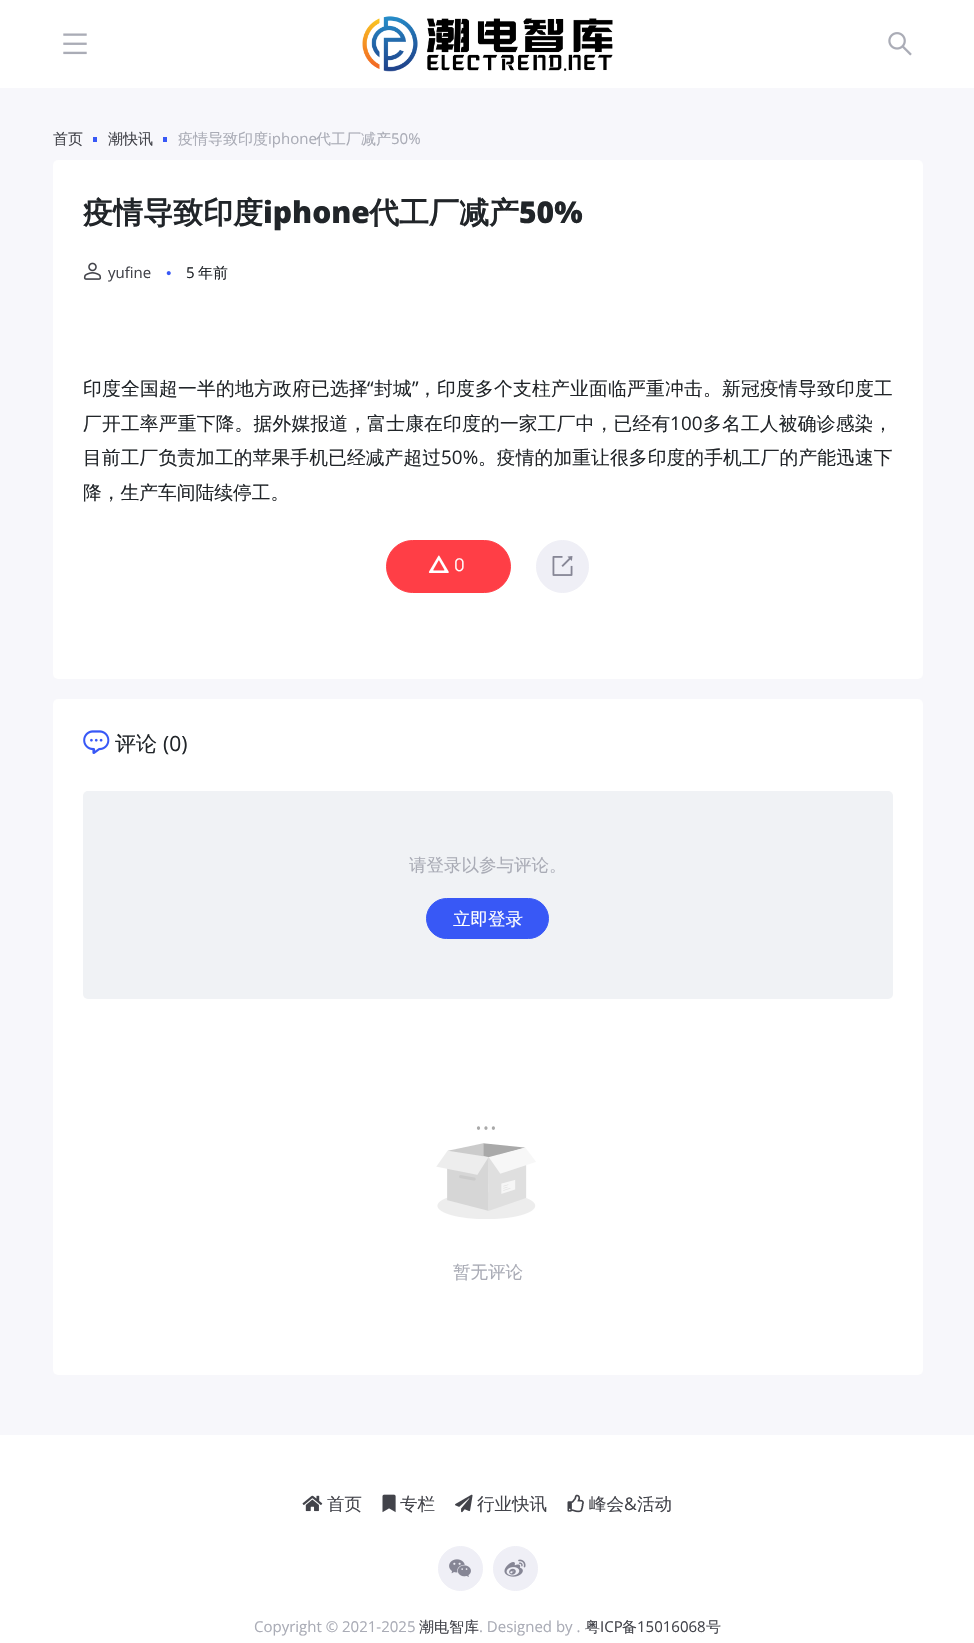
#include "include/core/SkBlurTypes.h"
#include "include/core/SkCanvas.h"
#include "include/core/SkData.h"
#include "include/core/SkFont.h"
#include "include/core/SkFontMgr.h"
#include "include/core/SkImage.h"
#include "include/core/SkMaskFilter.h"
#include "include/core/SkPaint.h"
#include "include/core/SkPathBuilder.h"
#include "include/core/SkTextBlob.h"
#include "include/effects/SkDashPathEffect.h"
#include "include/effects/SkGradientShader.h"
#include "include/utils/SkParsePath.h"

extern sk_sp<SkFontMgr> fontMgr;

void draw(SkCanvas* canvas) {
  SkPaint p;
  p.setAntiAlias(true);
  auto spacedText = [&](const char* s, float x, float y, const SkFont& font, const SkPaint& ink, float letter, float word) {
    std::vector<SkGlyphID> glyphs(font.countText(s, strlen(s), SkTextEncoding::kUTF8));
    std::vector<float> xs(glyphs.size());
    font.textToGlyphs(s, strlen(s), SkTextEncoding::kUTF8, glyphs);
    font.getXPos(glyphs, xs, x);
    float extra = 0;
    for (size_t i = 0; i < glyphs.size(); i++) {
      xs[i] += extra;
      extra += letter + word * (glyphs[i] == font.unicharToGlyph(' '));
    }
    canvas->drawTextBlob(SkTextBlob::MakeFromPosHGlyphs(glyphs, xs, y, font), 0, 0, ink);
  };
  canvas->clear(SkColorSetRGB(247, 247, 251));
  p.setColor(SK_ColorWHITE);
  canvas->drawRect(SkRect::MakeLTRB(0, 0, 974, 88), p);
  canvas->drawImageRect(SkImages::DeferredFromEncodedData(SkData::MakeFromFileName("images/1.png")), SkRect::MakeLTRB(63, 33, 87, 55), SkSamplingOptions());
  canvas->drawImageRect(SkImages::DeferredFromEncodedData(SkData::MakeFromFileName("images/2.png")), SkRect::MakeLTRB(362, 16, 613, 72), SkSamplingOptions());
  canvas->drawImageRect(SkImages::DeferredFromEncodedData(SkData::MakeFromFileName("images/3.png")), SkRect::MakeLTRB(888, 32, 912, 56), SkSamplingOptions());
  p.setColor(SkColorSetRGB(56, 88, 246));
  canvas->drawRect(SkRect::MakeLTRB(93, 137, 97, 142), p);
  canvas->drawRect(SkRect::MakeLTRB(163, 137, 167, 142), p);
  p.setColor(SK_ColorWHITE);
  canvas->drawRoundRect(SkRect::MakeLTRB(53, 160, 923, 679), 5, 5, p);
  canvas->drawImageRect(SkImages::DeferredFromEncodedData(SkData::MakeFromFileName("images/4.png")), SkRect::MakeLTRB(83, 262, 102, 280), SkSamplingOptions());
  canvas->drawImageRect(SkImages::DeferredFromEncodedData(SkData::MakeFromFileName("images/5.png")), SkRect::MakeLTRB(166, 271, 171, 276), SkSamplingOptions());
  p.setColor(SkColorSetRGB(255, 62, 70));
  canvas->drawRoundRect(SkRect::MakeLTRB(386.5f, 540.5f, 510.5f, 592.5f), 26, 26, p);
  p.setStyle(SkPaint::kStroke_Style);
  p.setStrokeWidth(1);
  canvas->drawRoundRect(SkRect::MakeLTRB(386.5f, 540.5f, 510.5f, 592.5f), 26, 26, p);
  canvas->drawImageRect(SkImages::DeferredFromEncodedData(SkData::MakeFromFileName("images/6.png")), SkRect::MakeLTRB(428, 555, 449, 573), SkSamplingOptions());
  p.setStyle(SkPaint::kFill_Style);
  p.setColor(SkColorSetRGB(239, 239, 246));
  canvas->drawCircle(562.5f, 566.5f, 26, p);
  p.setStyle(SkPaint::kStroke_Style);
  canvas->drawCircle(562.5f, 566.5f, 26, p);
  canvas->drawImageRect(SkImages::DeferredFromEncodedData(SkData::MakeFromFileName("images/7.png")), SkRect::MakeLTRB(552, 556, 573, 576), SkSamplingOptions());
  p.setStyle(SkPaint::kFill_Style);
  p.setColor(SK_ColorWHITE);
  canvas->drawRoundRect(SkRect::MakeLTRB(53, 699, 923, 1375), 5, 5, p);
  canvas->drawImageRect(SkImages::DeferredFromEncodedData(SkData::MakeFromFileName("images/8.png")), SkRect::MakeLTRB(83, 730, 110, 754), SkSamplingOptions());
  p.setColor(SkColorSetRGB(240, 242, 245));
  canvas->drawRoundRect(SkRect::MakeLTRB(83, 791, 893, 999), 5, 5, p);
  p.setColor(SkColorSetRGB(56, 88, 246));
  canvas->drawRoundRect(SkRect::MakeLTRB(426.5f, 898.5f, 548.5f, 938.5f), 20, 20, p);
  p.setStyle(SkPaint::kStroke_Style);
  canvas->drawRoundRect(SkRect::MakeLTRB(426.5f, 898.5f, 548.5f, 938.5f), 20, 20, p);
  canvas->drawImageRect(SkImages::DeferredFromEncodedData(SkData::MakeFromFileName("images/9.png")), SkRect::MakeLTRB(436, 1126, 536, 1219), SkSamplingOptions());
  p.setStyle(SkPaint::kFill_Style);
  p.setColor(SK_ColorWHITE);
  canvas->drawRect(SkRect::MakeLTRB(0, 1435, 974, 1643), p);
  canvas->drawImageRect(SkImages::DeferredFromEncodedData(SkData::MakeFromFileName("images/10.png")), SkRect::MakeLTRB(302, 1495, 323, 1512), SkSamplingOptions());
  canvas->drawImageRect(SkImages::DeferredFromEncodedData(SkData::MakeFromFileName("images/11.png")), SkRect::MakeLTRB(382, 1494, 396, 1513), SkSamplingOptions());
  canvas->drawImageRect(SkImages::DeferredFromEncodedData(SkData::MakeFromFileName("images/12.png")), SkRect::MakeLTRB(455, 1494, 473, 1513), SkSamplingOptions());
  canvas->drawImageRect(SkImages::DeferredFromEncodedData(SkData::MakeFromFileName("images/13.png")), SkRect::MakeLTRB(567, 1494, 584, 1513), SkSamplingOptions());
  p.setColor(SkColorSetRGB(239, 239, 246));
  canvas->drawCircle(460.5f, 1568.5f, 22, p);
  p.setStyle(SkPaint::kStroke_Style);
  canvas->drawCircle(460.5f, 1568.5f, 22, p);
  canvas->drawImageRect(SkImages::DeferredFromEncodedData(SkData::MakeFromFileName("images/14.png")), SkRect::MakeLTRB(449, 1559, 471, 1577), SkSamplingOptions());
  p.setStyle(SkPaint::kFill_Style);
  canvas->drawCircle(515.5f, 1568.5f, 22, p);
  p.setStyle(SkPaint::kStroke_Style);
  canvas->drawCircle(515.5f, 1568.5f, 22, p);
  canvas->drawImageRect(SkImages::DeferredFromEncodedData(SkData::MakeFromFileName("images/15.png")), SkRect::MakeLTRB(504, 1559, 526, 1577), SkSamplingOptions());
  SkFont font1(fontMgr->matchFamilyStyle("WenQuanYi Zen Hei", SkFontStyle(500, SkFontStyle::kNormal_Width, SkFontStyle::kUpright_Slant)), 15);
  font1.setSubpixel(true);
  p.setStyle(SkPaint::kFill_Style);
  p.setColor(SkColorSetRGB(66, 67, 74));
  canvas->drawString("首页", 53, 144, font1, p);
  canvas->drawString("潮快讯", 108, 144, font1, p);
  p.setColor(SkColorSetRGB(170, 172, 182));
  canvas->drawString("疫情导致印度", 178, 144, font1, p);
  SkFont font2(fontMgr->matchFamilyStyle("Open Sans", SkFontStyle::Normal()), 15);
  font2.setSubpixel(true);
  canvas->drawString("iphone", 268, 144, font2, p);
  canvas->drawString("代工厂减产", 316, 144, font1, p);
  canvas->drawString("50%", 391, 144, font2, p);
  SkFont font3(fontMgr->matchFamilyStyle("WenQuanYi Zen Hei", SkFontStyle::Bold()), 30);
  font3.setSubpixel(true);
  p.setColor(SkColorSetRGB(33, 37, 41));
  canvas->drawString("疫情导致印度", 83, 223, font3, p);
  SkFont font4(fontMgr->matchFamilyStyle("Open Sans", SkFontStyle(800, SkFontStyle::kNormal_Width, SkFontStyle::kUpright_Slant)), 30);
  font4.setSubpixel(true);
  canvas->drawString("iphone", 263, 223, font4, p);
  canvas->drawString("代工厂减产", 369, 223, font3, p);
  canvas->drawString("50%", 519, 223, font4, p);
  p.setColor(SkColorSetRGB(66, 67, 74));
  canvas->drawString("yufine", 108, 278, font2, p);
  p.setColor(SkColorSetRGB(33, 37, 41));
  canvas->drawString("5", 186, 278, font2, p);
  canvas->drawString("年前", 198, 278, font1, p);
  SkFont font5(fontMgr->matchFamilyStyle("WenQuanYi Zen Hei", SkFontStyle(500, SkFontStyle::kNormal_Width, SkFontStyle::kUpright_Slant)), 18.75f);
  font5.setSubpixel(true);
  spacedText("印度全国超一半的地方政府已选择", 83, 395, font5, p, 0.25f, 0);
  SkFont font6(fontMgr->matchFamilyStyle("Open Sans", SkFontStyle::Normal()), 18.75f);
  font6.setSubpixel(true);
  spacedText("“", 367, 395, font6, p, 0.25f, 0);
  spacedText("封城", 374, 395, font5, p, 0.25f, 0);
  spacedText("”", 412, 395, font6, p, 0.25f, 0);
  spacedText("，印度多个支柱产业面临严重冲击。新冠疫情导致印度工", 418, 395, font5, p, 0.25f, 0);
  spacedText("厂开工率严重下降。据外媒报道，富士康在印度的一家工厂中，已经有", 83, 430, font5, p, 0.2f, 0);
  spacedText("100", 670, 430, font6, p, 0.2f, 0);
  spacedText("多名工人被确诊感染，", 703, 430, font5, p, 0.2f, 0);
  spacedText("目前工厂负责加工的苹果手机已经减产超过", 83, 464, font5, p, 0.1f, 0);
  spacedText("50%", 441, 464, font6, p, 0.1f, 0);
  spacedText("。疫情的加重让很多印度的手机工厂的产能迅速下", 478, 464, font5, p, 0.1f, 0);
  canvas->drawString("降，生产车间陆续停工。", 83, 499, font5, p);
  SkFont font7(fontMgr->matchFamilyStyle("Manrope", SkFontStyle::Normal()), 17.5f);
  font7.setSubpixel(true);
  p.setColor(SK_ColorWHITE);
  canvas->drawString("0", 454, 571, font7, p);
  SkFont font8(fontMgr->matchFamilyStyle("WenQuanYi Zen Hei", SkFontStyle(500, SkFontStyle::kNormal_Width, SkFontStyle::kUpright_Slant)), 21);
  font8.setSubpixel(true);
  p.setColor(SkColorSetRGB(33, 37, 41));
  canvas->drawString("评论", 115, 751, font8, p);
  SkFont font9(fontMgr->matchFamilyStyle("Open Sans", SkFontStyle::Normal()), 21);
  font9.setSubpixel(true);
  canvas->drawString("(0)", 163, 751, font9, p);
  SkFont font10(fontMgr->matchFamilyStyle("WenQuanYi Zen Hei", SkFontStyle(500, SkFontStyle::kNormal_Width, SkFontStyle::kUpright_Slant)), 17.5f);
  font10.setSubpixel(true);
  p.setColor(SkColorSetRGB(170, 172, 182));
  canvas->drawString("请登录以参与评论。", 409, 871, font10, p);
  p.setColor(SK_ColorWHITE);
  canvas->drawString("立即登录", 453, 925, font10, p);
  p.setColor(SkColorSetRGB(170, 172, 182));
  canvas->drawString("暂无评论", 453, 1278, font10, p);
  p.setColor(SkColorSetRGB(66, 67, 74));
  canvas->drawString("首页", 327, 1510, font10, p);
  canvas->drawString("专栏", 400, 1510, font10, p);
  canvas->drawString("行业快讯", 477, 1510, font10, p);
  canvas->drawString("峰会", 589, 1510, font10, p);
  SkFont font11(fontMgr->matchFamilyStyle("Open Sans", SkFontStyle::Normal()), 17.5f);
  font11.setSubpixel(true);
  canvas->drawString("&", 624, 1510, font11, p);
  canvas->drawString("活动", 637, 1510, font10, p);
  p.setColor(SkColorSetRGB(170, 172, 182));
  canvas->drawString("Copyright © 2021-2025", 254, 1632, font2, p);
  p.setColor(SkColorSetRGB(66, 67, 74));
  canvas->drawString("潮电智库", 419, 1632, font1, p);
  p.setColor(SkColorSetRGB(170, 172, 182));
  canvas->drawString(". Designed by .", 479, 1632, font2, p);
  p.setColor(SkColorSetRGB(66, 67, 74));
  canvas->drawString("粤", 585, 1632, font1, p);
  canvas->drawString("ICP", 600, 1632, font2, p);
  canvas->drawString("备", 622, 1632, font1, p);
  canvas->drawString("15016068", 637, 1632, font2, p);
  canvas->drawString("号", 706, 1632, font1, p);
}
